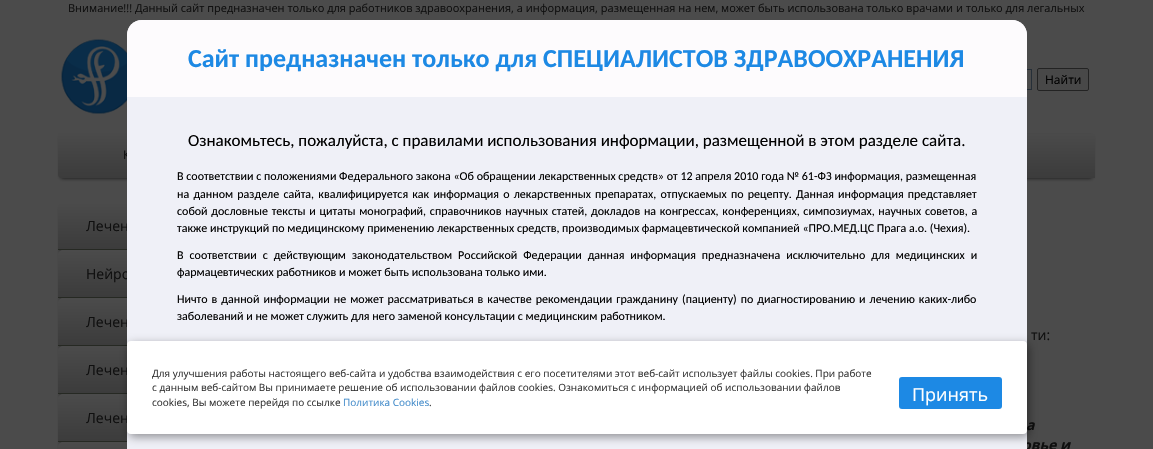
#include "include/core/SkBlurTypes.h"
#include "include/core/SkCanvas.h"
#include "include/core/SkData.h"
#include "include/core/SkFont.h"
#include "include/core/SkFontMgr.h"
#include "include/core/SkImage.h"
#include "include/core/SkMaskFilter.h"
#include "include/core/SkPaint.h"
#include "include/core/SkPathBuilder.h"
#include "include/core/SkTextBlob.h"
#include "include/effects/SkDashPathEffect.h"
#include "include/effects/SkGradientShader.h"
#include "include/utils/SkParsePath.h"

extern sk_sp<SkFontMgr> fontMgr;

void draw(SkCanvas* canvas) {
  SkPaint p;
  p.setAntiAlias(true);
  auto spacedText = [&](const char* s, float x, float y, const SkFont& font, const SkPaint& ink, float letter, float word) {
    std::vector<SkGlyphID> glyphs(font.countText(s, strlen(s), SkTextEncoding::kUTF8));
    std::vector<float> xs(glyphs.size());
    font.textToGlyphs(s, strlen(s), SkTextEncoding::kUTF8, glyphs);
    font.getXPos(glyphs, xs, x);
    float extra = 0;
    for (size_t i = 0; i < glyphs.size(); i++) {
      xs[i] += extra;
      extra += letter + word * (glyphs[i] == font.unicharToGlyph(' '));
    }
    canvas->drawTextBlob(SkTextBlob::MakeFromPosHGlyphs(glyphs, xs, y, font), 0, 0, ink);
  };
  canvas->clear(SkColorSetRGB(75, 75, 75));
  canvas->drawImageRect(SkImages::DeferredFromEncodedData(SkData::MakeFromFileName("images/1.png")), SkRect::MakeLTRB(61, 39, 127, 114), SkSamplingOptions());
  p.setStyle(SkPaint::kStroke_Style);
  p.setStrokeWidth(1);
  p.setColor(SkColorSetRGB(38, 47, 56));
  canvas->drawRect(SkRect::MakeLTRB(851.5f, 69.5f, 1031.5f, 89.5f), p);
  p.setStyle(SkPaint::kFill_Style);
  p.setColor(SkColorSetRGB(72, 72, 72));
  canvas->drawRoundRect(SkRect::MakeLTRB(1037.5f, 68.5f, 1088.5f, 90.5f), 1.5f, 1.5f, p);
  p.setStyle(SkPaint::kStroke_Style);
  p.setColor(SkColorSetRGB(35, 35, 35));
  canvas->drawRoundRect(SkRect::MakeLTRB(1037.5f, 68.5f, 1088.5f, 90.5f), 1.5f, 1.5f, p);
  p.setStyle(SkPaint::kFill_Style);
  p.setColor(SkColorSetRGB(15, 15, 15));
  p.setMaskFilter(SkMaskFilter::MakeBlur(kNormal_SkBlurStyle, 2));
  canvas->drawRect(SkRect::MakeLTRB(61, 137, 1092, 178), p);
  p.setMaskFilter(nullptr);
  {
    const SkColor colors[] = {SkColorSetRGB(75, 75, 75), SkColorSetRGB(60, 60, 60)};
    const float stops[] = {0, 0.98f};
    const SkPoint ends[] = {{187, 131}, {187, 178}};
    p.setShader(SkGradientShader::MakeLinear(ends, colors, stops, 2, SkTileMode::kClamp));
    p.setAlpha(255);
  }
  canvas->drawPath(SkPathBuilder().moveTo(61, 131).lineTo(317, 131).lineTo(317, 178).lineTo(61, 178).cubicTo(59.5f, 178, 58, 176.5f, 58, 175).lineTo(58, 134).cubicTo(58, 132.5f, 59.5f, 131, 61, 131).close().detach(), p);
  {
    const SkColor colors[] = {SkColorSetRGB(75, 75, 75), SkColorSetRGB(60, 60, 60)};
    const float stops[] = {0, 0.98f};
    const SkPoint ends[] = {{966, 131}, {966, 178}};
    p.setShader(SkGradientShader::MakeLinear(ends, colors, stops, 2, SkTileMode::kClamp));
    p.setAlpha(255);
  }
  canvas->drawRect(SkRect::MakeLTRB(1027, 134, 1095, 178), p);
  p.setShader(nullptr);
  p.setColor(SkColorSetRGB(15, 15, 15));
  p.setMaskFilter(SkMaskFilter::MakeBlur(kNormal_SkBlurStyle, 2));
  canvas->drawRect(SkRect::MakeLTRB(61, 208, 335, 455), p);
  p.setMaskFilter(nullptr);
  {
    const SkColor colors[] = {SkColorSetRGB(75, 75, 75), SkColorSetRGB(60, 60, 60)};
    const float stops[] = {0, 0.98f};
    const SkPoint ends[] = {{198, 202}, {198, 249}};
    p.setShader(SkGradientShader::MakeLinear(ends, colors, stops, 2, SkTileMode::kClamp));
    p.setAlpha(255);
  }
  canvas->drawPath(SkPathBuilder().moveTo(63, 202).lineTo(333, 202).cubicTo(336, 202, 338, 204, 338, 207).lineTo(338, 249).lineTo(58, 249).lineTo(58, 207).cubicTo(58, 204, 60, 202, 63, 202).close().detach(), p);
  p.setShader(nullptr);
  p.setColor(SkColorSetRGB(38, 41, 35));
  canvas->drawRect(SkRect::MakeLTRB(58, 249, 127, 250), p);
  {
    const SkColor colors[] = {SkColorSetRGB(75, 75, 75), SkColorSetRGB(60, 60, 60)};
    const float stops[] = {0, 0.98f};
    const SkPoint ends[] = {{198, 250}, {198, 297}};
    p.setShader(SkGradientShader::MakeLinear(ends, colors, stops, 2, SkTileMode::kClamp));
    p.setAlpha(255);
  }
  canvas->drawPath(SkPathBuilder().moveTo(63, 250).lineTo(333, 250).cubicTo(336, 250, 338, 252, 338, 255).lineTo(338, 297).lineTo(58, 297).lineTo(58, 255).cubicTo(58, 252, 60, 250, 63, 250).close().detach(), p);
  p.setShader(nullptr);
  p.setColor(SkColorSetRGB(38, 41, 35));
  canvas->drawRect(SkRect::MakeLTRB(58, 297, 127, 298), p);
  {
    const SkColor colors[] = {SkColorSetRGB(75, 75, 75), SkColorSetRGB(60, 60, 60)};
    const float stops[] = {0, 0.98f};
    const SkPoint ends[] = {{198, 298}, {198, 345}};
    p.setShader(SkGradientShader::MakeLinear(ends, colors, stops, 2, SkTileMode::kClamp));
    p.setAlpha(255);
  }
  canvas->drawPath(SkPathBuilder().moveTo(63, 298).lineTo(333, 298).cubicTo(336, 298, 338, 300, 338, 303).lineTo(338, 345).lineTo(58, 345).lineTo(58, 303).cubicTo(58, 300, 60, 298, 63, 298).close().detach(), p);
  p.setShader(nullptr);
  p.setColor(SkColorSetRGB(38, 41, 35));
  canvas->drawRect(SkRect::MakeLTRB(58, 345, 127, 346), p);
  {
    const SkColor colors[] = {SkColorSetRGB(75, 75, 75), SkColorSetRGB(60, 60, 60)};
    const float stops[] = {0, 0.98f};
    const SkPoint ends[] = {{198, 346}, {198, 393}};
    p.setShader(SkGradientShader::MakeLinear(ends, colors, stops, 2, SkTileMode::kClamp));
    p.setAlpha(255);
  }
  canvas->drawPath(SkPathBuilder().moveTo(63, 346).lineTo(333, 346).cubicTo(336, 346, 338, 348, 338, 351).lineTo(338, 393).lineTo(58, 393).lineTo(58, 351).cubicTo(58, 348, 60, 346, 63, 346).close().detach(), p);
  p.setShader(nullptr);
  p.setColor(SkColorSetRGB(38, 41, 35));
  canvas->drawRect(SkRect::MakeLTRB(58, 393, 127, 394), p);
  {
    const SkColor colors[] = {SkColorSetRGB(75, 75, 75), SkColorSetRGB(60, 60, 60)};
    const float stops[] = {0, 0.98f};
    const SkPoint ends[] = {{198, 394}, {198, 441}};
    p.setShader(SkGradientShader::MakeLinear(ends, colors, stops, 2, SkTileMode::kClamp));
    p.setAlpha(255);
  }
  canvas->drawPath(SkPathBuilder().moveTo(63, 394).lineTo(333, 394).cubicTo(336, 394, 338, 396, 338, 399).lineTo(338, 441).lineTo(58, 441).lineTo(58, 399).cubicTo(58, 396, 60, 394, 63, 394).close().detach(), p);
  p.setShader(nullptr);
  p.setColor(SkColorSetRGB(38, 41, 35));
  canvas->drawRect(SkRect::MakeLTRB(58, 441, 127, 442), p);
  {
    const SkColor colors[] = {SkColorSetRGB(75, 75, 75), SkColorSetRGB(60, 60, 60)};
    const float stops[] = {0, 0.98f};
    const SkPoint ends[] = {{198, 442}, {198, 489}};
    p.setShader(SkGradientShader::MakeLinear(ends, colors, stops, 2, SkTileMode::kClamp));
    p.setAlpha(255);
  }
  canvas->drawPath(SkPathBuilder().moveTo(63, 442).lineTo(333, 442).cubicTo(336, 442, 338, 444, 338, 447).lineTo(338, 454).lineTo(58, 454).lineTo(58, 447).cubicTo(58, 444, 60, 442, 63, 442).close().detach(), p);
  SkFont font1(fontMgr->matchFamilyStyle("Open Sans", SkFontStyle::Normal()), 11);
  font1.setSubpixel(true);
  p.setShader(nullptr);
  p.setColor(SkColorSetRGB(15, 15, 15));
  canvas->drawString("Внимание!!! Данный сайт предназначен только для работников здравоохранения, а информация, размещенная на нем, может быть использована только врачами и только для легальных", 68, 12, font1, p);
  SkFont font2(fontMgr->matchFamilyStyle("Open Sans", SkFontStyle::Normal()), 12);
  font2.setSubpixel(true);
  p.setColor(SK_ColorBLACK);
  canvas->drawString("Найти", 1045, 84, font2, p);
  p.setColor(SkColorSetRGB(15, 15, 15));
  canvas->drawString("К", 123, 159, font2, p);
  SkFont font3(fontMgr->matchFamilyStyle("Open Sans", SkFontStyle::Normal()), 14);
  font3.setSubpixel(true);
  canvas->drawString("Лечен", 86, 231, font3, p);
  canvas->drawString("Нейро", 86, 279, font3, p);
  canvas->drawString("Лечен", 86, 327, font3, p);
  canvas->drawString("Лечен", 86, 375, font3, p);
  canvas->drawString("Лечен", 86, 423, font3, p);
  canvas->drawString("ти:", 1031, 340, font3, p);
  SkFont font4(fontMgr->matchFamilyStyle("Open Sans", SkFontStyle::BoldItalic()), 14);
  font4.setSubpixel(true);
  canvas->drawString("а", 1026, 430, font4, p);
  canvas->drawString("овье и", 1022, 450, font4, p);
  p.setColor(SkColorSetRGB(239, 240, 247));
  canvas->drawRoundRect(SkRect::MakeLTRB(127, 20, 1027, 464), 15, 15, p);
  SkFont font5(fontMgr->matchFamilyStyle("Carlito", SkFontStyle::Normal()), 12);
  font5.setSubpixel(true);
  p.setColor(SK_ColorBLACK);
  canvas->drawString("заболеваний и не может служить для него заменой консультации с медицинским работником.", 177, 320, font5, p);
  spacedText("Ничто в данной информации не может рассматриваться в качестве рекомендации гражданину (пациенту) по диагностированию и лечению каких-либо", 177, 303, font5, p, 0, 1.3f);
  canvas->drawString("фармацевтических работников и может быть использована только ими.", 177, 276, font5, p);
  spacedText("В соответствии с действующим законодательством Российской Федерации данная информация предназначена исключительно для медицинских и", 177, 259, font5, p, 0, 3.25f);
  canvas->drawString("также инструкций по медицинскому применению лекарственных средств, производимых фармацевтической компанией «ПРО.МЕД.ЦС Прага а.о. (Чехия).", 177, 232, font5, p);
  spacedText("собой дословные тексты и цитаты монографий, справочников научных статей, докладов на конгрессах, конференциях, симпозиумах, научных советов, а", 177, 215, font5, p, 0, 1);
  spacedText("на данном разделе сайта, квалифицируется как информация о лекарственных препаратах, отпускаемых по рецепту. Данная информация представляет", 177, 198, font5, p, 0, 1.5f);
  canvas->drawString("В соответствии с положениями Федерального закона «Об обращении лекарственных средств» от 12 апреля 2010 года № 61-ФЗ информация, размещенная", 177, 180, font5, p);
  SkFont font6(fontMgr->matchFamilyStyle("Carlito", SkFontStyle::Normal()), 17);
  font6.setSubpixel(true);
  canvas->drawString("Ознакомьтесь, пожалуйста, с правилами использования информации, размещенной в этом разделе сайта.", 188, 146, font6, p);
  p.setColor(SkColorSetRGB(253, 251, 253));
  canvas->drawPath(SkPathBuilder().moveTo(142, 20).lineTo(1012, 20).cubicTo(1020.5f, 20, 1027, 26.5f, 1027, 35).lineTo(1027, 97).lineTo(127, 97).lineTo(127, 35).cubicTo(127, 26.5f, 133.5f, 20, 142, 20).close().detach(), p);
  SkFont font7(fontMgr->matchFamilyStyle("Carlito", SkFontStyle::Bold()), 26);
  font7.setSubpixel(true);
  p.setColor(SkColorSetRGB(29, 137, 228));
  canvas->drawString("Сайт предназначен только для СПЕЦИАЛИСТОВ ЗДРАВООХРАНЕНИЯ", 188, 67, font7, p);
  p.setColor(SkColorSetARGB(102, 0, 0, 0));
  p.setMaskFilter(SkMaskFilter::MakeBlur(kNormal_SkBlurStyle, 5));
  canvas->drawRoundRect(SkRect::MakeLTRB(129, 344, 1029, 437), 4, 4, p);
  p.setMaskFilter(nullptr);
  p.setColor(SK_ColorWHITE);
  canvas->drawRoundRect(SkRect::MakeLTRB(127, 341, 1027, 434), 4, 4, p);
  SkFont font8(fontMgr->matchFamilyStyle("Open Sans", SkFontStyle::Normal()), 10);
  font8.setSubpixel(true);
  p.setColor(SkColorSetRGB(51, 51, 51));
  canvas->drawString("Для улучшения работы настоящего веб-сайта и удобства взаимодействия с его посетителями этот веб-сайт использует файлы cookies. При работе", 152, 377, font8, p);
  canvas->drawString("с данным веб-сайтом Вы принимаете решение об использовании файлов cookies. Ознакомиться с информацией об использовании файлов", 152, 391, font8, p);
  canvas->drawString("cookies, Вы можете перейдя по ссылке", 152, 406, font8, p);
  p.setColor(SkColorSetRGB(66, 139, 202));
  canvas->drawString("Политика Cookies", 343, 406, font8, p);
  p.setColor(SkColorSetRGB(51, 51, 51));
  canvas->drawString(".", 429, 406, font8, p);
  p.setColor(SkColorSetRGB(29, 137, 228));
  canvas->drawRoundRect(SkRect::MakeLTRB(899, 377, 1002, 409), 3, 3, p);
  SkFont font9(fontMgr->matchFamilyStyle("Open Sans", SkFontStyle::Normal()), 18);
  font9.setSubpixel(true);
  p.setColor(SK_ColorWHITE);
  canvas->drawString("Принять", 912, 401, font9, p);
}
